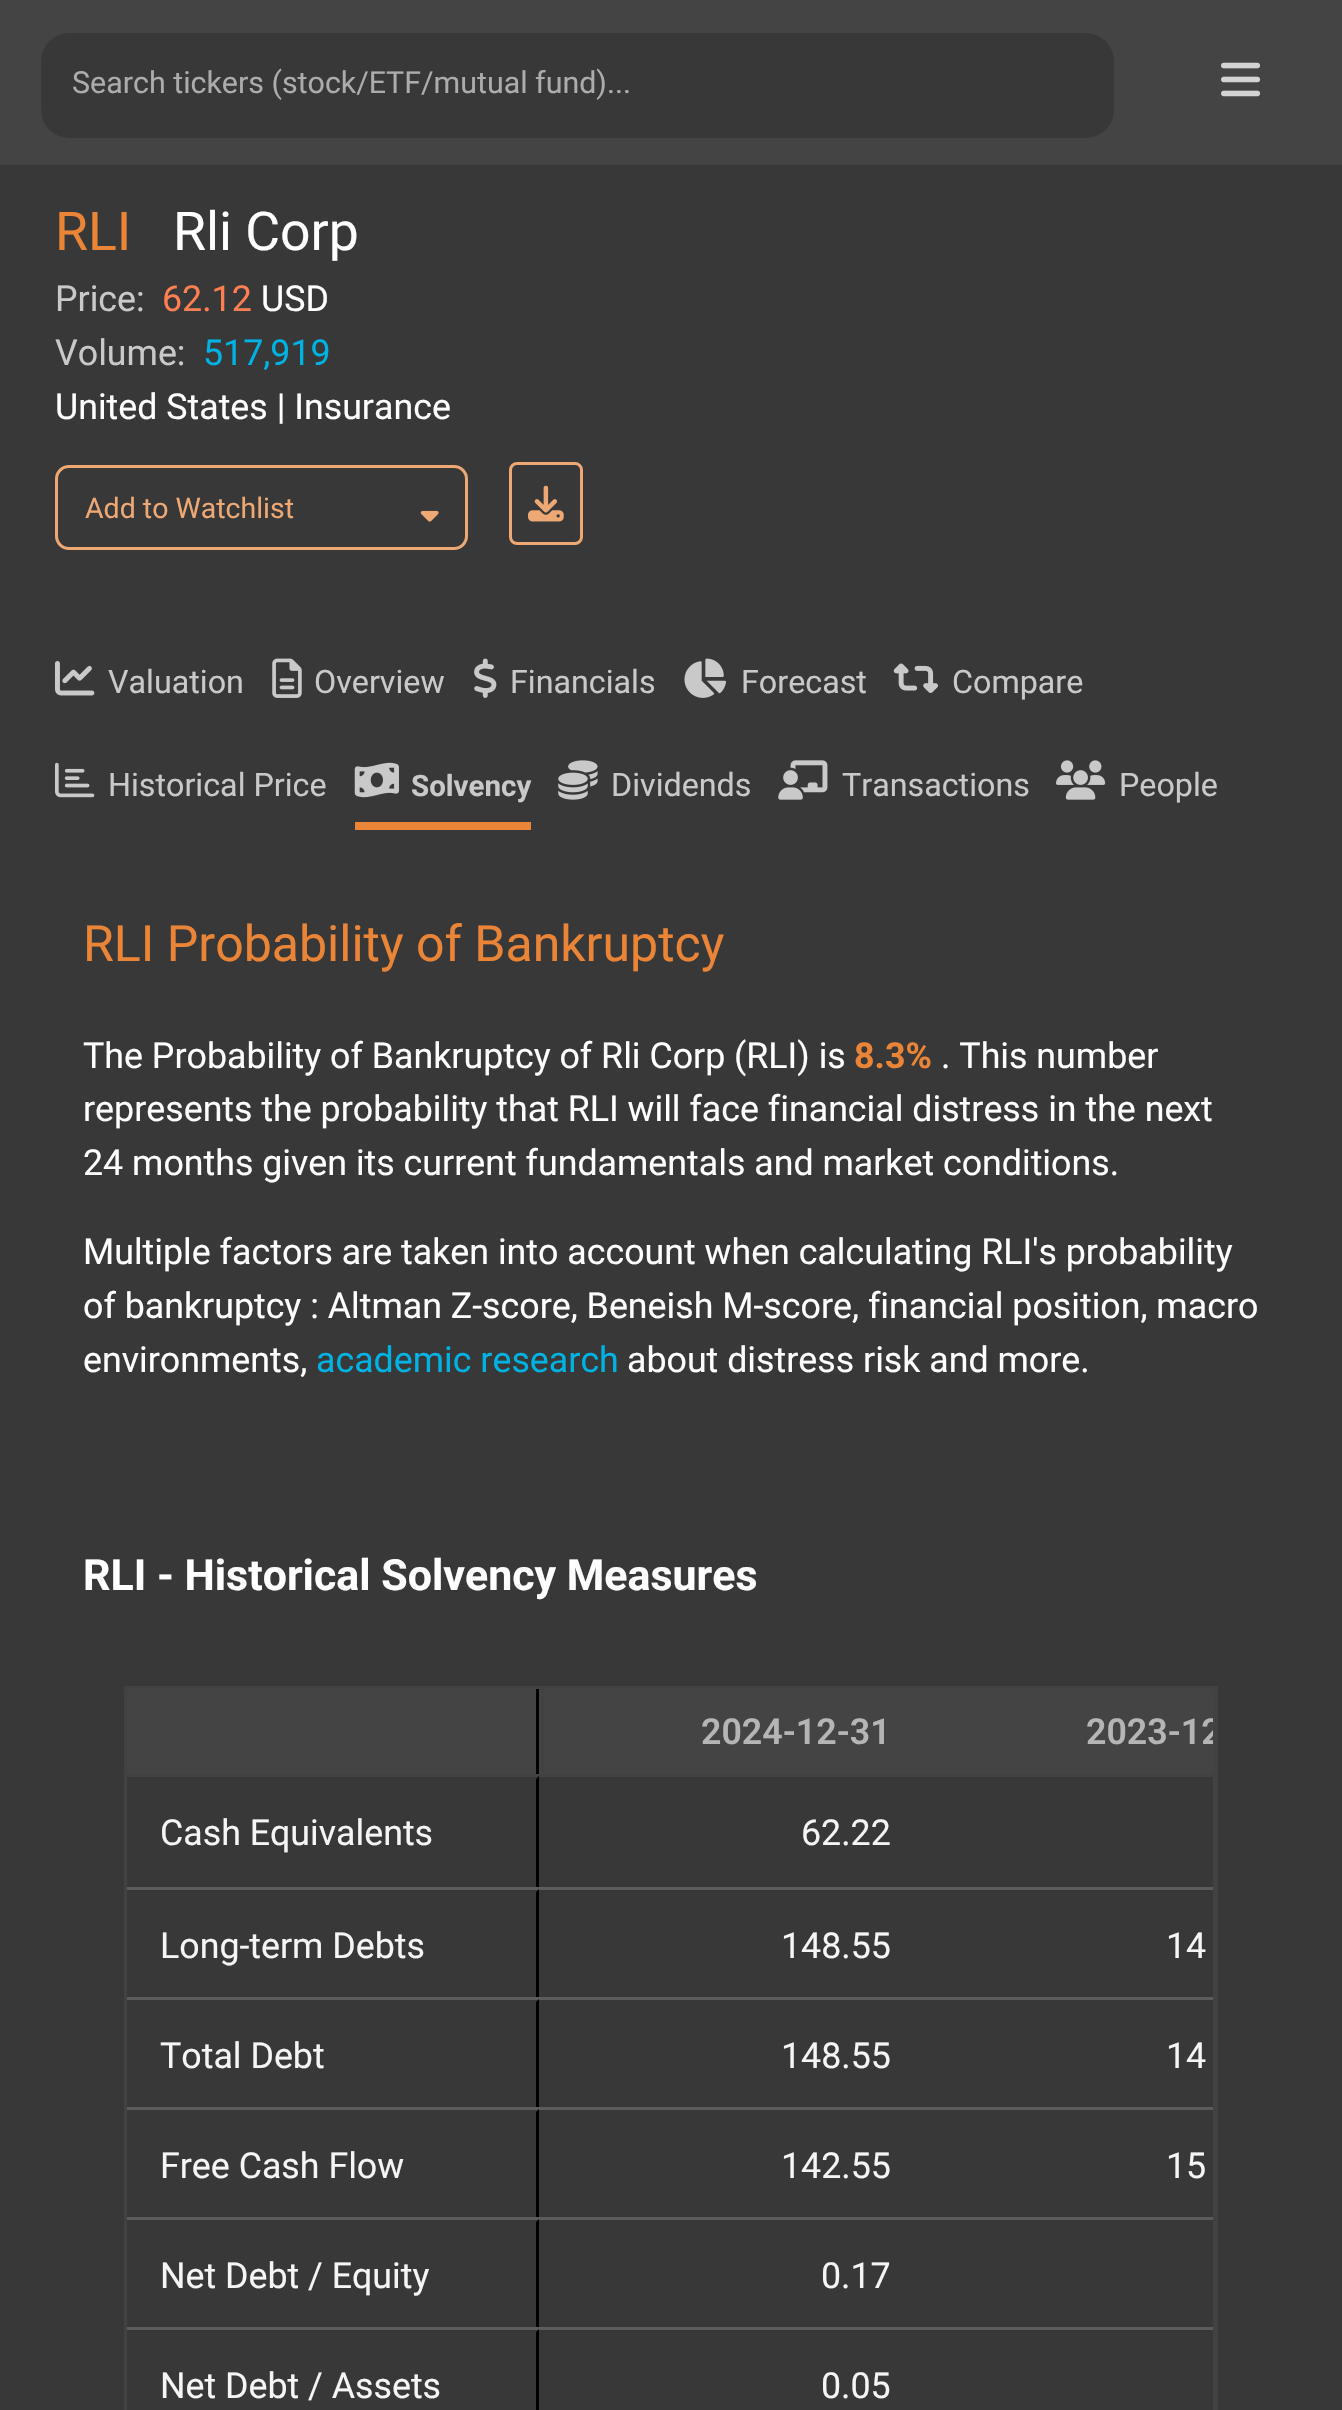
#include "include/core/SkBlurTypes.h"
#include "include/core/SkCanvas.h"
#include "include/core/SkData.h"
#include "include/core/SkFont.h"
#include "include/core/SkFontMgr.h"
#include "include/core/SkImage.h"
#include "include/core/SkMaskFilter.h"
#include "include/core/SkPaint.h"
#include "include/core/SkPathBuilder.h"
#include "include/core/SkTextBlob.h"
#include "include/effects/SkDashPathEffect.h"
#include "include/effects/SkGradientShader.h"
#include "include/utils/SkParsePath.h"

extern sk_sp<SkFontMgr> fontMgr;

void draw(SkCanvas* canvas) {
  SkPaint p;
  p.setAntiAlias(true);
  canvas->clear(SkColorSetRGB(56, 56, 56));
  p.setColor(SkColorSetRGB(68, 68, 68));
  canvas->drawRect(SkRect::MakeLTRB(0, 0, 1342, 165), p);
  p.setColor(SkColorSetRGB(56, 56, 56));
  canvas->drawRoundRect(SkRect::MakeLTRB(41, 33, 1114, 138), 28, 28, p);
  canvas->drawImageRect(SkImages::DeferredFromEncodedData(SkData::MakeFromFileName("images/1.png")), SkRect::MakeLTRB(1221, 62, 1261, 97), SkSamplingOptions());
  p.setStyle(SkPaint::kStroke_Style);
  p.setStrokeWidth(3);
  p.setColor(SkColorSetRGB(238, 168, 116));
  canvas->drawRoundRect(SkRect::MakeLTRB(56.5f, 466.5f, 466.5f, 548.5f), 12.5f, 12.5f, p);
  canvas->drawImageRect(SkImages::DeferredFromEncodedData(SkData::MakeFromFileName("images/2.png")), SkRect::MakeLTRB(420, 510, 439, 522), SkSamplingOptions());
  canvas->drawRoundRect(SkRect::MakeLTRB(510.5f, 463.5f, 581.5f, 543.5f), 6.5f, 6.5f, p);
  canvas->drawImageRect(SkImages::DeferredFromEncodedData(SkData::MakeFromFileName("images/3.png")), SkRect::MakeLTRB(528, 485, 564, 522), SkSamplingOptions());
  canvas->drawImageRect(SkImages::DeferredFromEncodedData(SkData::MakeFromFileName("images/4.png")), SkRect::MakeLTRB(55, 661, 95, 696), SkSamplingOptions());
  canvas->drawImageRect(SkImages::DeferredFromEncodedData(SkData::MakeFromFileName("images/5.png")), SkRect::MakeLTRB(272, 658, 302, 698), SkSamplingOptions());
  canvas->drawImageRect(SkImages::DeferredFromEncodedData(SkData::MakeFromFileName("images/6.png")), SkRect::MakeLTRB(474, 658, 497, 698), SkSamplingOptions());
  canvas->drawImageRect(SkImages::DeferredFromEncodedData(SkData::MakeFromFileName("images/7.png")), SkRect::MakeLTRB(684, 658, 726, 698), SkSamplingOptions());
  canvas->drawImageRect(SkImages::DeferredFromEncodedData(SkData::MakeFromFileName("images/8.png")), SkRect::MakeLTRB(893, 663, 938, 693), SkSamplingOptions());
  canvas->drawImageRect(SkImages::DeferredFromEncodedData(SkData::MakeFromFileName("images/9.png")), SkRect::MakeLTRB(55, 762, 95, 798), SkSamplingOptions());
  p.setStyle(SkPaint::kFill_Style);
  p.setColor(SkColorSetRGB(234, 132, 54));
  canvas->drawRect(SkRect::MakeLTRB(355, 822, 531, 830), p);
  canvas->drawImageRect(SkImages::DeferredFromEncodedData(SkData::MakeFromFileName("images/10.png")), SkRect::MakeLTRB(354, 762, 399, 798), SkSamplingOptions());
  canvas->drawImageRect(SkImages::DeferredFromEncodedData(SkData::MakeFromFileName("images/11.png")), SkRect::MakeLTRB(558, 760, 598, 800), SkSamplingOptions());
  canvas->drawImageRect(SkImages::DeferredFromEncodedData(SkData::MakeFromFileName("images/12.png")), SkRect::MakeLTRB(778, 760, 828, 800), SkSamplingOptions());
  canvas->drawImageRect(SkImages::DeferredFromEncodedData(SkData::MakeFromFileName("images/13.png")), SkRect::MakeLTRB(1056, 760, 1106, 800), SkSamplingOptions());
  p.setStyle(SkPaint::kStroke_Style);
  p.setColor(SkColorSetRGB(66, 66, 66));
  canvas->drawRect(SkRect::MakeLTRB(125.5f, 1687.5f, 1214.5f, 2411.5f), p);
  p.setStyle(SkPaint::kFill_Style);
  p.setColor(SkColorSetRGB(68, 68, 68));
  canvas->drawRect(SkRect::MakeLTRB(127, 1689, 1213, 1774), p);
  p.setColor(SkColorSetRGB(66, 66, 66));
  canvas->drawRect(SkRect::MakeLTRB(127, 1774, 1213, 1777), p);
  p.setColor(SK_ColorBLACK);
  canvas->drawRect(SkRect::MakeLTRB(536, 1689, 539, 1774), p);
  canvas->drawPath(SkPathBuilder().moveTo(539, 1776).lineTo(539, 1892).lineTo(536, 1889).lineTo(536, 1779).close().detach(), p);
  p.setColor(SkColorSetRGB(56, 56, 56));
  canvas->drawRect(SkRect::MakeLTRB(537, 1890, 538, 1891), p);
  p.setColor(SkColorSetRGB(92, 92, 92));
  canvas->drawRect(SkRect::MakeLTRB(127, 1887, 1213, 1890), p);
  p.setColor(SK_ColorBLACK);
  canvas->drawPath(SkPathBuilder().moveTo(539, 1889).lineTo(539, 2005).lineTo(536, 2002).lineTo(536, 1892).close().detach(), p);
  p.setColor(SkColorSetRGB(56, 56, 56));
  canvas->drawRect(SkRect::MakeLTRB(536, 2000, 538, 2004), p);
  p.setColor(SkColorSetRGB(92, 92, 92));
  canvas->drawRect(SkRect::MakeLTRB(127, 1997, 1213, 2000), p);
  p.setColor(SK_ColorBLACK);
  canvas->drawPath(SkPathBuilder().moveTo(539, 1999).lineTo(539, 2115).lineTo(536, 2112).lineTo(536, 2002).close().detach(), p);
  p.setColor(SkColorSetRGB(56, 56, 56));
  canvas->drawRect(SkRect::MakeLTRB(536, 2110, 538, 2114), p);
  p.setColor(SkColorSetRGB(92, 92, 92));
  canvas->drawRect(SkRect::MakeLTRB(127, 2107, 1213, 2110), p);
  p.setColor(SK_ColorBLACK);
  canvas->drawPath(SkPathBuilder().moveTo(539, 2109).lineTo(539, 2225).lineTo(536, 2222).lineTo(536, 2112).close().detach(), p);
  p.setColor(SkColorSetRGB(56, 56, 56));
  canvas->drawRect(SkRect::MakeLTRB(536, 2220, 538, 2224), p);
  p.setColor(SkColorSetRGB(92, 92, 92));
  canvas->drawRect(SkRect::MakeLTRB(127, 2217, 1213, 2220), p);
  p.setColor(SK_ColorBLACK);
  canvas->drawPath(SkPathBuilder().moveTo(539, 2219).lineTo(539, 2335).lineTo(536, 2332).lineTo(536, 2222).close().detach(), p);
  p.setColor(SkColorSetRGB(56, 56, 56));
  canvas->drawRect(SkRect::MakeLTRB(536, 2330, 538, 2334), p);
  p.setColor(SkColorSetRGB(92, 92, 92));
  canvas->drawRect(SkRect::MakeLTRB(127, 2327, 1213, 2330), p);
  p.setColor(SK_ColorBLACK);
  canvas->drawPath(SkPathBuilder().moveTo(539, 2329).lineTo(539, 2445).lineTo(536, 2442).lineTo(536, 2332).close().detach(), p);
  p.setColor(SkColorSetRGB(66, 66, 66));
  canvas->drawRect(SkRect::MakeLTRB(1216, 1686, 1218, 2410), p);
  SkFont font1(fontMgr->matchFamilyStyle("Roboto", SkFontStyle::Normal()), 30.4f);
  font1.setSubpixel(true);
  p.setColor(SkColorSetRGB(172, 172, 172));
  canvas->drawString("Search tickers (stock/ETF/mutual fund)...", 72, 93, font1, p);
  SkFont font2(fontMgr->matchFamilyStyle("Roboto", SkFontStyle::Normal()), 53.5f);
  font2.setSubpixel(true);
  p.setColor(SkColorSetRGB(234, 132, 54));
  canvas->drawString("RLI", 55, 250, font2, p);
  p.setColor(SK_ColorWHITE);
  canvas->drawString("Rli Corp", 173, 250, font2, p);
  SkFont font3(fontMgr->matchFamilyStyle("Roboto", SkFontStyle::Normal()), 35.75f);
  font3.setSubpixel(true);
  p.setColor(SkColorSetRGB(201, 201, 201));
  canvas->drawString("Price:", 55, 311, font3, p);
  p.setColor(SkColorSetRGB(255, 127, 80));
  canvas->drawString("62.12", 162, 311, font3, p);
  p.setColor(SK_ColorWHITE);
  canvas->drawString("USD", 261, 311, font3, p);
  p.setColor(SkColorSetRGB(201, 201, 201));
  canvas->drawString("Volume:", 55, 365, font3, p);
  p.setColor(SkColorSetRGB(0, 179, 227));
  canvas->drawString("517,919", 203, 365, font3, p);
  p.setColor(SK_ColorWHITE);
  canvas->drawString("United States | Insurance", 55, 419, font3, p);
  SkFont font4(fontMgr->matchFamilyStyle("Roboto", SkFontStyle::Normal()), 28.5f);
  font4.setSubpixel(true);
  p.setColor(SkColorSetRGB(238, 168, 116));
  canvas->drawString("Add to Watchlist", 85, 518, font4, p);
  SkFont font5(fontMgr->matchFamilyStyle("Roboto", SkFontStyle::Normal()), 32.25f);
  font5.setSubpixel(true);
  p.setColor(SkColorSetRGB(201, 201, 201));
  canvas->drawString("Valuation", 108, 693, font5, p);
  canvas->drawString("Overview", 314, 693, font5, p);
  canvas->drawString("Financials", 510, 693, font5, p);
  canvas->drawString("Forecast", 741, 693, font5, p);
  canvas->drawString("Compare", 952, 693, font5, p);
  canvas->drawString("Historical Price", 108, 796, font5, p);
  SkFont font6(fontMgr->matchFamilyStyle("Roboto", SkFontStyle::Bold()), 29.5f);
  font6.setSubpixel(true);
  canvas->drawString("Solvency", 411, 796, font6, p);
  canvas->drawString("Dividends", 611, 796, font5, p);
  canvas->drawString("Transactions", 842, 796, font5, p);
  canvas->drawString("People", 1119, 796, font5, p);
  SkFont font7(fontMgr->matchFamilyStyle("Roboto", SkFontStyle::Normal()), 50);
  font7.setSubpixel(true);
  p.setColor(SkColorSetRGB(234, 132, 54));
  canvas->drawString("RLI Probability of Bankruptcy", 83, 961, font7, p);
  p.setColor(SK_ColorWHITE);
  canvas->drawString("The Probability of Bankruptcy of Rli Corp (RLI) is", 83, 1068, font3, p);
  SkFont font8(fontMgr->matchFamilyStyle("Roboto", SkFontStyle::Bold()), 35.75f);
  font8.setSubpixel(true);
  p.setColor(SkColorSetRGB(234, 132, 54));
  canvas->drawString("8.3%", 854, 1068, font8, p);
  p.setColor(SK_ColorWHITE);
  canvas->drawString(". This number", 941, 1068, font3, p);
  canvas->drawString("represents the probability that RLI will face financial distress in the next", 83, 1121, font3, p);
  canvas->drawString("24 months given its current fundamentals and market conditions.", 83, 1175, font3, p);
  canvas->drawString("Multiple factors are taken into account when calculating RLI's probability", 83, 1264, font3, p);
  canvas->drawString("of bankruptcy : Altman Z-score, Beneish M-score, financial position, macro", 83, 1318, font3, p);
  canvas->drawString("environments,", 83, 1372, font3, p);
  p.setColor(SkColorSetRGB(0, 179, 227));
  canvas->drawString("academic research", 316, 1372, font3, p);
  p.setColor(SK_ColorWHITE);
  canvas->drawString("about distress risk and more.", 627, 1372, font3, p);
  SkFont font9(fontMgr->matchFamilyStyle("Roboto", SkFontStyle::Bold()), 42.9f);
  font9.setSubpixel(true);
  canvas->drawString("RLI - Historical Solvency Measures", 83, 1590, font9, p);
  SkFont font10(fontMgr->matchFamilyStyle("Roboto", SkFontStyle(600, SkFontStyle::kNormal_Width, SkFontStyle::kUpright_Slant)), 35.75f);
  font10.setSubpixel(true);
  p.setColor(SkColorSetRGB(181, 181, 181));
  canvas->drawString("2024-12-31", 701, 1744, font10, p);
  canvas->save();
  canvas->clipRect(SkRect::MakeLTRB(1086, 1711, 1213, 1752));
  canvas->drawString("2023-12", 1086, 1744, font10, p);
  canvas->restore();
  p.setColor(SkColorSetRGB(245, 245, 245));
  canvas->drawString("Cash Equivalents", 160, 1845, font3, p);
  canvas->drawString("Long-term Debts", 160, 1958, font3, p);
  canvas->drawString("Total Debt", 160, 2068, font3, p);
  canvas->drawString("Free Cash Flow", 160, 2178, font3, p);
  canvas->drawString("Net Debt / Equity", 160, 2288, font3, p);
  canvas->drawString("Net Debt / Assets", 160, 2398, font3, p);
  canvas->drawString("62.22", 801, 1845, font3, p);
  canvas->drawString("148.55", 781, 1958, font3, p);
  canvas->drawString("14", 1166, 1958, font3, p);
  canvas->drawString("148.55", 781, 2068, font3, p);
  canvas->drawString("14", 1166, 2068, font3, p);
  canvas->drawString("142.55", 781, 2178, font3, p);
  canvas->drawString("15", 1166, 2178, font3, p);
  canvas->drawString("0.17", 821, 2288, font3, p);
  canvas->drawString("0.05", 821, 2398, font3, p);
}
